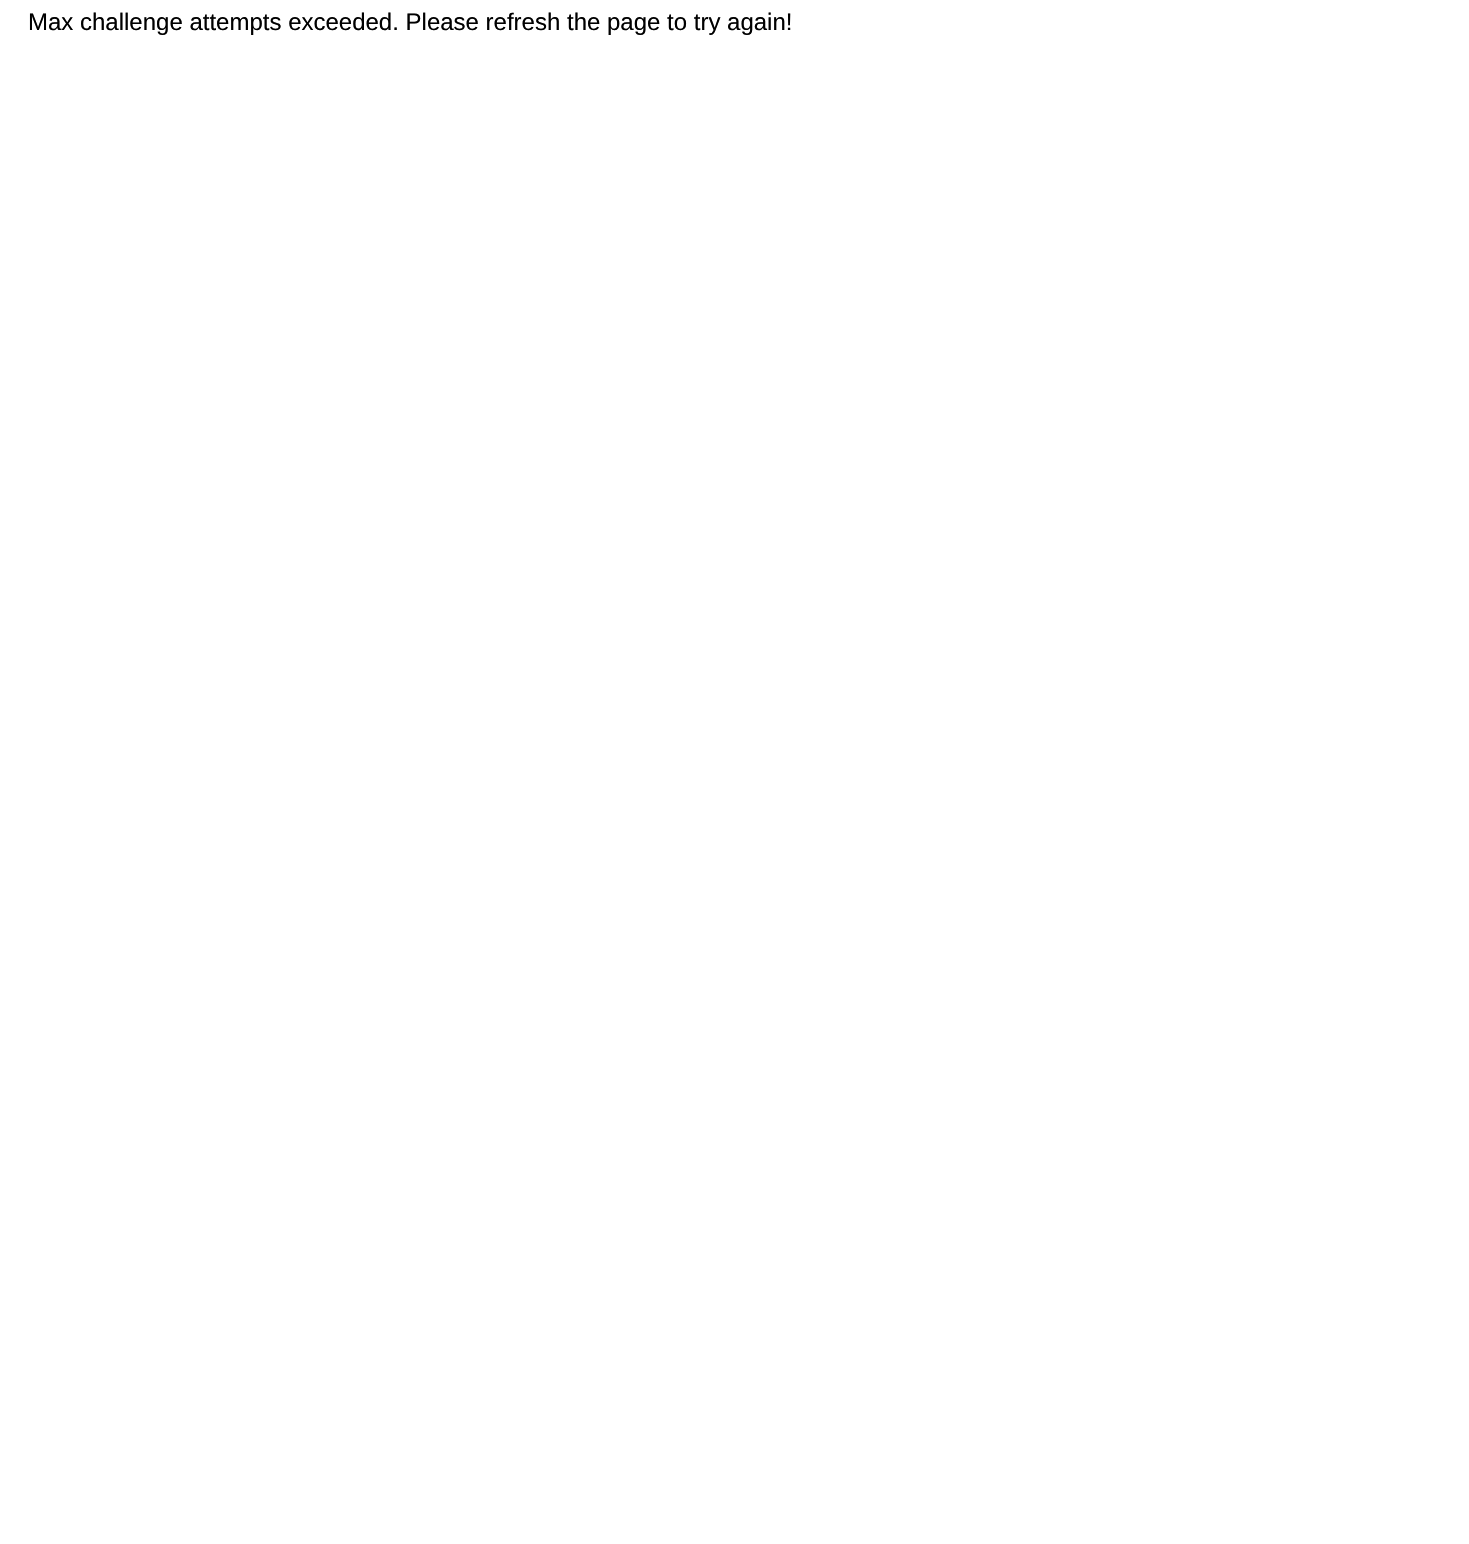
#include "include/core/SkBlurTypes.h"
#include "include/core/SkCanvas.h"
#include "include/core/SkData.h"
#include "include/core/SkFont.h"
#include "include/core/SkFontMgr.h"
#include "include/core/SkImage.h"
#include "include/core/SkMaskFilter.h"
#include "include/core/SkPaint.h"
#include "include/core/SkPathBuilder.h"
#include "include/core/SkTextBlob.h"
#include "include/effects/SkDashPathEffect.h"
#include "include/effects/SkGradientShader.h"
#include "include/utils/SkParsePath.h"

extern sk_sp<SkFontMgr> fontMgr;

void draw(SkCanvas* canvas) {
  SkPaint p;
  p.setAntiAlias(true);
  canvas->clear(SK_ColorWHITE);
  SkFont font1(fontMgr->matchFamilyStyle("Liberation Sans", SkFontStyle::Normal()), 24);
  font1.setSubpixel(true);
  p.setColor(SK_ColorBLACK);
  canvas->drawString("Max challenge attempts exceeded. Please refresh the page to try again!", 28, 30, font1, p);
}
